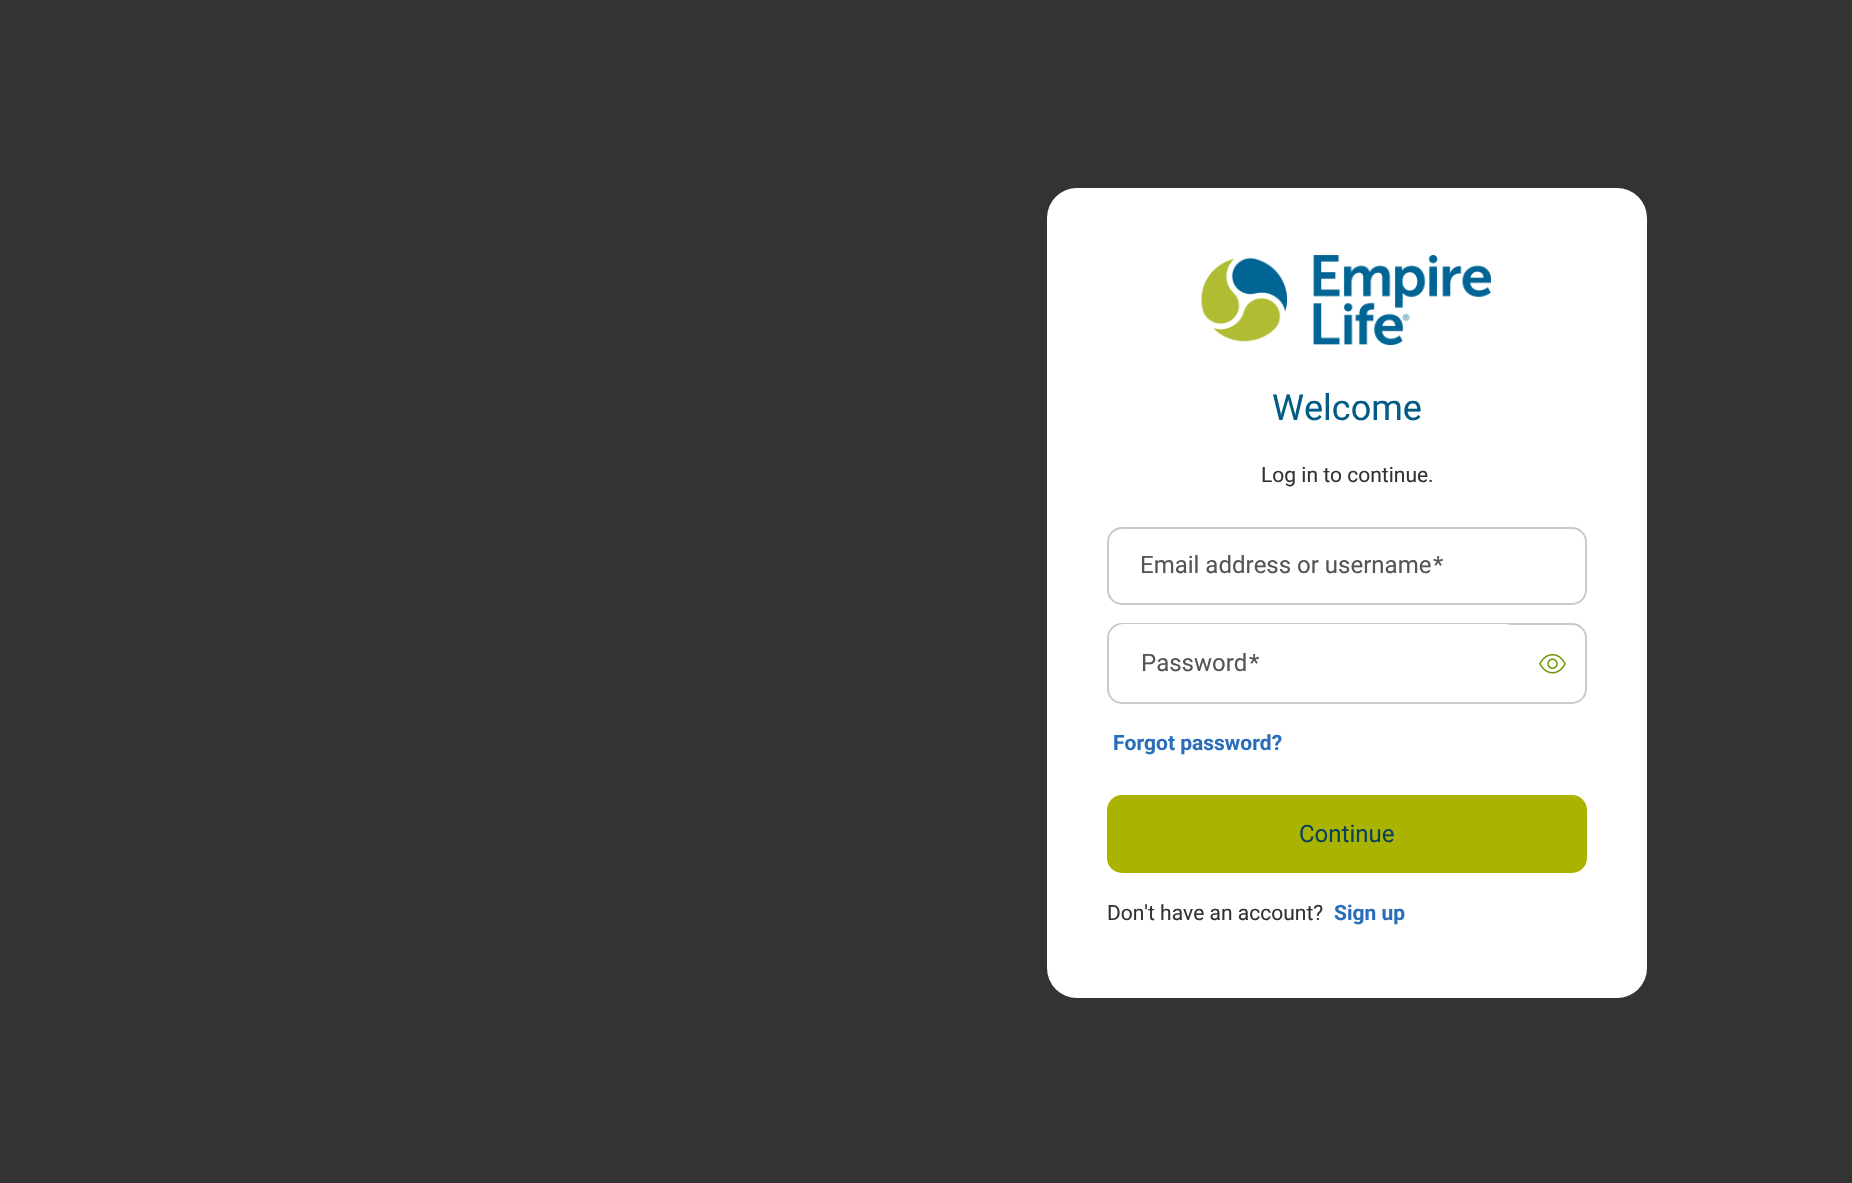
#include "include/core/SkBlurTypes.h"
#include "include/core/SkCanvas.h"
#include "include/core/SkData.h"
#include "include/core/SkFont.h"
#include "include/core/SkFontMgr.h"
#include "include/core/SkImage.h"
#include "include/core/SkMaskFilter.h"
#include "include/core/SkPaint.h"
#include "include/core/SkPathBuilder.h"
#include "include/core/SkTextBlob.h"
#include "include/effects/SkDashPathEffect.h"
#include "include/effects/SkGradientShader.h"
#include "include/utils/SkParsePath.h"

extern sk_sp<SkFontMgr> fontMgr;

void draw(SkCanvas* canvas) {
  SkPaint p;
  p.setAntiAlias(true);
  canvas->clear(SkColorSetRGB(51, 51, 51));
  p.setColor(SK_ColorWHITE);
  canvas->drawRoundRect(SkRect::MakeLTRB(1047, 188, 1647, 998), 30, 30, p);
  canvas->drawImageRect(SkImages::DeferredFromEncodedData(SkData::MakeFromFileName("images/1.png")), SkRect::MakeLTRB(1201, 255, 1491, 345), SkSamplingOptions());
  p.setStyle(SkPaint::kStroke_Style);
  p.setStrokeWidth(2);
  p.setColor(SkColorSetRGB(201, 202, 206));
  canvas->drawRoundRect(SkRect::MakeLTRB(1108, 528, 1586, 604), 14, 14, p);
  canvas->drawRoundRect(SkRect::MakeLTRB(1108, 624, 1586, 703), 14, 14, p);
  p.setStyle(SkPaint::kFill_Style);
  p.setColor(SK_ColorWHITE);
  canvas->drawRoundRect(SkRect::MakeLTRB(1109, 624, 1520, 702), 15, 15, p);
  canvas->drawImageRect(SkImages::DeferredFromEncodedData(SkData::MakeFromFileName("images/2.png")), SkRect::MakeLTRB(1539, 654, 1566, 674), SkSamplingOptions());
  p.setColor(SkColorSetRGB(170, 179, 0));
  canvas->drawRoundRect(SkRect::MakeLTRB(1107, 795, 1587, 873), 15, 15, p);
  SkFont font1(fontMgr->matchFamilyStyle("Roboto", SkFontStyle::Normal()), 36);
  font1.setSubpixel(true);
  p.setColor(SkColorSetRGB(0, 92, 132));
  canvas->drawString("Welcome", 1272, 420, font1, p);
  SkFont font2(fontMgr->matchFamilyStyle("Roboto", SkFontStyle::Normal()), 21);
  font2.setSubpixel(true);
  p.setColor(SkColorSetRGB(51, 51, 51));
  canvas->drawString("Log in to continue.", 1261, 482, font2, p);
  SkFont font3(fontMgr->matchFamilyStyle("Roboto", SkFontStyle::Normal()), 24);
  font3.setSubpixel(true);
  p.setColor(SkColorSetRGB(85, 85, 85));
  canvas->drawString("Email address or username", 1140, 573, font3, p);
  canvas->drawString("*", 1433, 573, font3, p);
  canvas->drawString("Password", 1141, 671, font3, p);
  canvas->drawString("*", 1249, 671, font3, p);
  SkFont font4(fontMgr->matchFamilyStyle("Roboto", SkFontStyle::Bold()), 21);
  font4.setSubpixel(true);
  p.setColor(SkColorSetRGB(42, 110, 187));
  canvas->drawString("Forgot password?", 1113, 750, font4, p);
  p.setColor(SkColorSetRGB(10, 66, 90));
  canvas->drawString("Continue", 1299, 842, font3, p);
  p.setColor(SkColorSetRGB(51, 51, 51));
  canvas->drawString("Don't have an account?", 1107, 920, font2, p);
  p.setColor(SkColorSetRGB(42, 110, 187));
  canvas->drawString("Sign up", 1334, 920, font4, p);
}
